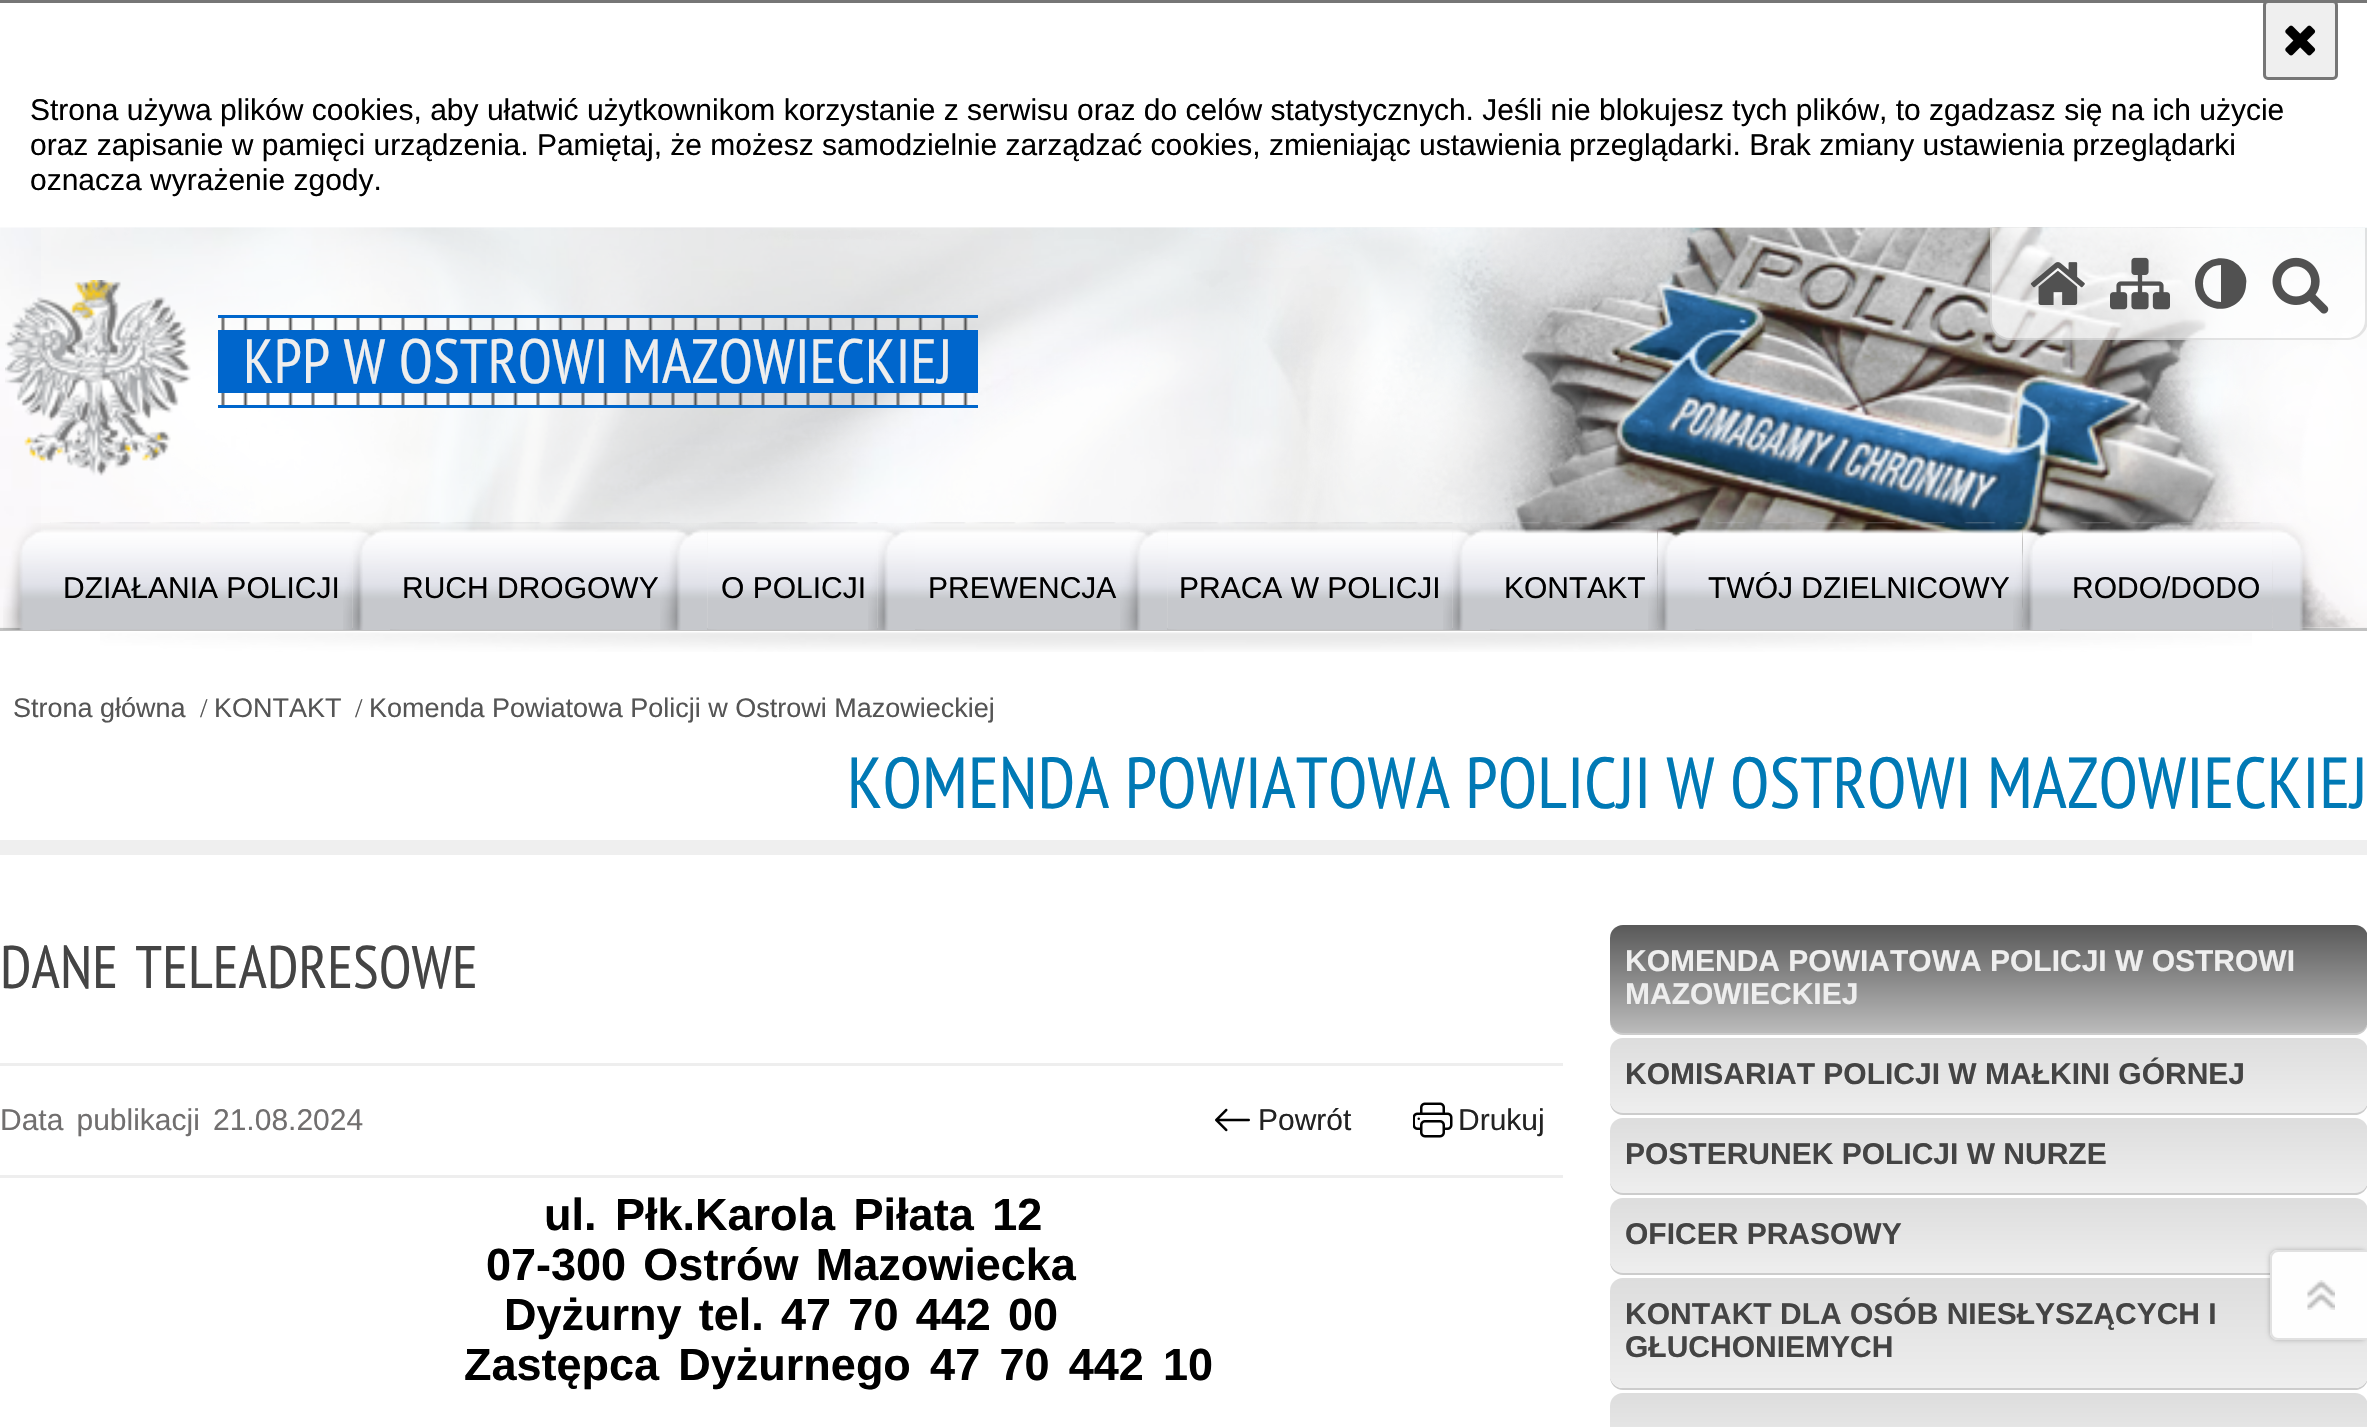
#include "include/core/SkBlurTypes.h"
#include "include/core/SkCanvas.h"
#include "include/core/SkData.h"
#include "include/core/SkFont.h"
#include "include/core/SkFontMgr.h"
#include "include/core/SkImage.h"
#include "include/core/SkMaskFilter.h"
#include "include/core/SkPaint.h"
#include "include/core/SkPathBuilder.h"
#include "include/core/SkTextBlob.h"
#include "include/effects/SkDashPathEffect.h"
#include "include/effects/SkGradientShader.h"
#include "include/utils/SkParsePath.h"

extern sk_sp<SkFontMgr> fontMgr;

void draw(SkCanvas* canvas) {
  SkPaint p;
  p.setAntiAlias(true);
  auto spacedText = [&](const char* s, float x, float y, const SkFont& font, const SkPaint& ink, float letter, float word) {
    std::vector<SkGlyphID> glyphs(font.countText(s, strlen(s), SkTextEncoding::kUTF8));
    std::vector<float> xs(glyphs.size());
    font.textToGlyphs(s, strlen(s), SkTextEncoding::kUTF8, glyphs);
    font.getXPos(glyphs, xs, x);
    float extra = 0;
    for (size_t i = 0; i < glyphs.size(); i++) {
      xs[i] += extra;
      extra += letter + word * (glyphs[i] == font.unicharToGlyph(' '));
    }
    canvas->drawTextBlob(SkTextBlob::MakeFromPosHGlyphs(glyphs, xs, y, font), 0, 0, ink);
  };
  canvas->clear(SK_ColorWHITE);
  p.setColor(SkColorSetRGB(118, 118, 118));
  canvas->drawRect(SkRect::MakeLTRB(0, 0, 2367, 3), p);
  p.setColor(SkColorSetRGB(239, 239, 239));
  canvas->drawRoundRect(SkRect::MakeLTRB(2264.5f, 1.5f, 2336.5f, 78.5f), 3.5f, 3.5f, p);
  p.setStyle(SkPaint::kStroke_Style);
  p.setStrokeWidth(3);
  p.setColor(SkColorSetRGB(118, 118, 118));
  canvas->drawRoundRect(SkRect::MakeLTRB(2264.5f, 1.5f, 2336.5f, 78.5f), 3.5f, 3.5f, p);
  canvas->drawImageRect(SkImages::DeferredFromEncodedData(SkData::MakeFromFileName("images/1.png")), SkRect::MakeLTRB(2285, 25, 2316, 56), SkSamplingOptions());
  canvas->drawImageRect(SkImages::DeferredFromEncodedData(SkData::MakeFromFileName("images/2.png")), SkRect::MakeLTRB(0, 227, 2367, 628), SkSamplingOptions());
  canvas->drawImageRect(SkImages::DeferredFromEncodedData(SkData::MakeFromFileName("images/3.png")), SkRect::MakeLTRB(100, 632, 2252, 652), SkSamplingOptions());
  canvas->drawImageRect(SkImages::DeferredFromEncodedData(SkData::MakeFromFileName("images/4.png")), SkRect::MakeLTRB(41, 227, 2367, 628), SkSamplingOptions());
  p.setStyle(SkPaint::kFill_Style);
  p.setColor(SkColorSetRGB(193, 193, 193));
  canvas->drawRect(SkRect::MakeLTRB(0, 628, 2367, 631), p);
  p.setColor(SkColorSetARGB(179, 255, 255, 255));
  canvas->drawPath(SkPathBuilder().moveTo(1990, 228).lineTo(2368, 228).lineTo(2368, 320).cubicTo(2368, 331, 2359, 340, 2348, 340).lineTo(2010, 340).cubicTo(1999, 340, 1990, 331, 1990, 320).close().detach(), p);
  p.setColor(SkColorSetARGB(26, 0, 0, 0));
  canvas->drawPath(SkPathBuilder(SkPathFillType::kEvenOdd).moveTo(1990, 228).lineTo(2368, 228).lineTo(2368, 320).cubicTo(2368, 331, 2359, 340, 2347, 340).lineTo(2010, 340).cubicTo(1999, 340, 1990, 331, 1990, 320).close().moveTo(1992, 228).lineTo(2365, 228).lineTo(2365, 320).cubicTo(2365, 330, 2357, 338, 2347, 338).lineTo(2010, 338).cubicTo(2000, 338, 1992, 330, 1992, 320).close().detach(), p);
  canvas->drawImageRect(SkImages::DeferredFromEncodedData(SkData::MakeFromFileName("images/5.png")), SkRect::MakeLTRB(2030, 262, 2085, 305), SkSamplingOptions());
  canvas->drawImageRect(SkImages::DeferredFromEncodedData(SkData::MakeFromFileName("images/6.png")), SkRect::MakeLTRB(2110, 257, 2170, 310), SkSamplingOptions());
  p.setColor(SkColorSetRGB(81, 81, 81));
  canvas->drawPath(SkPathBuilder().moveTo(2221, 302).lineTo(2221, 265).cubicTo(2197, 265, 2197, 302, 2221, 302).close().moveTo(2243, 271).cubicTo(2246, 275, 2247, 280, 2246, 285).cubicTo(2245, 310, 2211, 318, 2198, 296).cubicTo(2196, 292, 2195, 287, 2195, 282).cubicTo(2197, 257, 2230, 249, 2243, 271).close().detach(), p);
  canvas->drawImageRect(SkImages::DeferredFromEncodedData(SkData::MakeFromFileName("images/7.png")), SkRect::MakeLTRB(2272, 257, 2329, 314), SkSamplingOptions());
  canvas->drawImageRect(SkImages::DeferredFromEncodedData(SkData::MakeFromFileName("images/8.png")), SkRect::MakeLTRB(221, 318, 968, 405), SkSamplingOptions());
  p.setColor(SkColorSetRGB(0, 102, 204));
  canvas->drawRect(SkRect::MakeLTRB(218, 315, 978, 318), p);
  canvas->drawRect(SkRect::MakeLTRB(218, 405, 978, 408), p);
  canvas->drawImageRect(SkImages::DeferredFromEncodedData(SkData::MakeFromFileName("images/9.png")), SkRect::MakeLTRB(5, 280, 191, 476), SkSamplingOptions());
  canvas->drawRect(SkRect::MakeLTRB(218, 330, 978, 393), p);
  canvas->drawImageRect(SkImages::DeferredFromEncodedData(SkData::MakeFromFileName("images/10.png")), SkRect::MakeLTRB(352, 523, 400, 630), SkSamplingOptions());
  canvas->drawImageRect(SkImages::DeferredFromEncodedData(SkData::MakeFromFileName("images/11.png")), SkRect::MakeLTRB(3, 523, 50, 630), SkSamplingOptions());
  canvas->drawImageRect(SkImages::DeferredFromEncodedData(SkData::MakeFromFileName("images/12.png")), SkRect::MakeLTRB(50, 522, 353, 630), SkSamplingOptions());
  canvas->drawImageRect(SkImages::DeferredFromEncodedData(SkData::MakeFromFileName("images/13.png")), SkRect::MakeLTRB(670, 523, 717, 630), SkSamplingOptions());
  canvas->drawImageRect(SkImages::DeferredFromEncodedData(SkData::MakeFromFileName("images/14.png")), SkRect::MakeLTRB(343, 523, 390, 630), SkSamplingOptions());
  canvas->drawImageRect(SkImages::DeferredFromEncodedData(SkData::MakeFromFileName("images/15.png")), SkRect::MakeLTRB(390, 522, 670, 630), SkSamplingOptions());
  canvas->drawImageRect(SkImages::DeferredFromEncodedData(SkData::MakeFromFileName("images/16.png")), SkRect::MakeLTRB(877, 523, 925, 630), SkSamplingOptions());
  canvas->drawImageRect(SkImages::DeferredFromEncodedData(SkData::MakeFromFileName("images/17.png")), SkRect::MakeLTRB(660, 523, 708, 630), SkSamplingOptions());
  canvas->drawImageRect(SkImages::DeferredFromEncodedData(SkData::MakeFromFileName("images/18.png")), SkRect::MakeLTRB(707, 522, 878, 630), SkSamplingOptions());
  canvas->drawImageRect(SkImages::DeferredFromEncodedData(SkData::MakeFromFileName("images/19.png")), SkRect::MakeLTRB(1130, 523, 1177, 630), SkSamplingOptions());
  canvas->drawImageRect(SkImages::DeferredFromEncodedData(SkData::MakeFromFileName("images/20.png")), SkRect::MakeLTRB(868, 523, 915, 630), SkSamplingOptions());
  canvas->drawImageRect(SkImages::DeferredFromEncodedData(SkData::MakeFromFileName("images/21.png")), SkRect::MakeLTRB(915, 522, 1130, 630), SkSamplingOptions());
  canvas->drawImageRect(SkImages::DeferredFromEncodedData(SkData::MakeFromFileName("images/22.png")), SkRect::MakeLTRB(1452, 523, 1500, 630), SkSamplingOptions());
  canvas->drawImageRect(SkImages::DeferredFromEncodedData(SkData::MakeFromFileName("images/23.png")), SkRect::MakeLTRB(1120, 523, 1168, 630), SkSamplingOptions());
  canvas->drawImageRect(SkImages::DeferredFromEncodedData(SkData::MakeFromFileName("images/24.png")), SkRect::MakeLTRB(1167, 522, 1453, 630), SkSamplingOptions());
  canvas->drawImageRect(SkImages::DeferredFromEncodedData(SkData::MakeFromFileName("images/25.png")), SkRect::MakeLTRB(1657, 525, 1705, 630), SkSamplingOptions());
  canvas->drawImageRect(SkImages::DeferredFromEncodedData(SkData::MakeFromFileName("images/26.png")), SkRect::MakeLTRB(1443, 523, 1490, 630), SkSamplingOptions());
  canvas->drawImageRect(SkImages::DeferredFromEncodedData(SkData::MakeFromFileName("images/27.png")), SkRect::MakeLTRB(1490, 522, 1658, 630), SkSamplingOptions());
  canvas->drawImageRect(SkImages::DeferredFromEncodedData(SkData::MakeFromFileName("images/28.png")), SkRect::MakeLTRB(2022, 525, 2070, 630), SkSamplingOptions());
  canvas->drawImageRect(SkImages::DeferredFromEncodedData(SkData::MakeFromFileName("images/29.png")), SkRect::MakeLTRB(1648, 528, 1695, 630), SkSamplingOptions());
  canvas->drawImageRect(SkImages::DeferredFromEncodedData(SkData::MakeFromFileName("images/30.png")), SkRect::MakeLTRB(1695, 522, 2023, 630), SkSamplingOptions());
  canvas->drawImageRect(SkImages::DeferredFromEncodedData(SkData::MakeFromFileName("images/31.png")), SkRect::MakeLTRB(2272, 523, 2320, 630), SkSamplingOptions());
  canvas->drawImageRect(SkImages::DeferredFromEncodedData(SkData::MakeFromFileName("images/32.png")), SkRect::MakeLTRB(2013, 523, 2060, 630), SkSamplingOptions());
  canvas->drawImageRect(SkImages::DeferredFromEncodedData(SkData::MakeFromFileName("images/33.png")), SkRect::MakeLTRB(2060, 522, 2273, 630), SkSamplingOptions());
  p.setColor(SkColorSetRGB(239, 239, 239));
  canvas->drawRect(SkRect::MakeLTRB(0, 840, 2367, 855), p);
  p.setColor(SkColorSetRGB(238, 238, 238));
  canvas->drawRect(SkRect::MakeLTRB(0, 1063, 1563, 1066), p);
  canvas->drawRect(SkRect::MakeLTRB(0, 1175, 1563, 1178), p);
  canvas->drawImageRect(SkImages::DeferredFromEncodedData(SkData::MakeFromFileName("images/34.png")), SkRect::MakeLTRB(1215, 1108, 1250, 1132), SkSamplingOptions());
  canvas->drawImageRect(SkImages::DeferredFromEncodedData(SkData::MakeFromFileName("images/35.png")), SkRect::MakeLTRB(1413, 1102, 1453, 1138), SkSamplingOptions());
  p.setColor(SkColorSetRGB(204, 204, 204));
  canvas->drawPath(SkPathBuilder().moveTo(1610, 1020).lineTo(1610, 1022).cubicTo(1610, 1029, 1616, 1035, 1623, 1035).lineTo(2355, 1035).cubicTo(2362, 1035, 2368, 1029, 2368, 1022).lineTo(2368, 941).lineTo(2367, 937).lineTo(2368, 1020).cubicTo(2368, 1027, 2362, 1032, 2355, 1032).lineTo(1622, 1032).cubicTo(1616, 1032, 1610, 1027, 1610, 1020).close().detach(), p);
  {
    const SkColor colors[] = {SkColorSetRGB(187, 187, 187), SkColorSetRGB(89, 89, 89)};
    const float stops[] = {0, 1};
    const SkPoint ends[] = {{1989, 1033}, {1989, 925}};
    p.setShader(SkGradientShader::MakeLinear(ends, colors, stops, 2, SkTileMode::kClamp));
    p.setAlpha(255);
  }
  canvas->drawRoundRect(SkRect::MakeLTRB(1610, 925, 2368, 1033), 13, 13, p);
  p.setShader(nullptr);
  p.setColor(SkColorSetRGB(204, 204, 204));
  canvas->drawPath(SkPathBuilder().moveTo(1610, 1100).lineTo(1610, 1102).cubicTo(1610, 1109, 1616, 1115, 1623, 1115).lineTo(2355, 1115).cubicTo(2362, 1115, 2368, 1109, 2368, 1102).lineTo(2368, 1053).lineTo(2367, 1049).lineTo(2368, 1100).cubicTo(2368, 1107, 2362, 1112, 2355, 1112).lineTo(1622, 1112).cubicTo(1616, 1112, 1610, 1107, 1610, 1100).close().detach(), p);
  {
    const SkColor colors[] = {SkColorSetRGB(238, 238, 238), SkColorSetRGB(221, 221, 221)};
    const float stops[] = {0, 1};
    const SkPoint ends[] = {{1989, 1113}, {1989, 1038}};
    p.setShader(SkGradientShader::MakeLinear(ends, colors, stops, 2, SkTileMode::kClamp));
    p.setAlpha(255);
  }
  canvas->drawRoundRect(SkRect::MakeLTRB(1610, 1038, 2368, 1113), 13, 13, p);
  p.setShader(nullptr);
  p.setColor(SkColorSetRGB(204, 204, 204));
  canvas->drawPath(SkPathBuilder().moveTo(1610, 1180).lineTo(1610, 1182).cubicTo(1610, 1189, 1616, 1195, 1623, 1195).lineTo(2355, 1195).cubicTo(2362, 1195, 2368, 1189, 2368, 1182).lineTo(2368, 1133).lineTo(2367, 1129).lineTo(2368, 1180).cubicTo(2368, 1187, 2362, 1192, 2355, 1192).lineTo(1622, 1192).cubicTo(1616, 1192, 1610, 1187, 1610, 1180).close().detach(), p);
  {
    const SkColor colors[] = {SkColorSetRGB(238, 238, 238), SkColorSetRGB(221, 221, 221)};
    const float stops[] = {0, 1};
    const SkPoint ends[] = {{1989, 1193}, {1989, 1118}};
    p.setShader(SkGradientShader::MakeLinear(ends, colors, stops, 2, SkTileMode::kClamp));
    p.setAlpha(255);
  }
  canvas->drawRoundRect(SkRect::MakeLTRB(1610, 1118, 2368, 1193), 13, 13, p);
  p.setShader(nullptr);
  p.setColor(SkColorSetRGB(204, 204, 204));
  canvas->drawPath(SkPathBuilder().moveTo(1610, 1260).lineTo(1610, 1262).cubicTo(1610, 1269, 1616, 1275, 1623, 1275).lineTo(2355, 1275).cubicTo(2362, 1275, 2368, 1269, 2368, 1262).lineTo(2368, 1213).lineTo(2367, 1209).lineTo(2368, 1260).cubicTo(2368, 1267, 2362, 1272, 2355, 1272).lineTo(1622, 1272).cubicTo(1616, 1272, 1610, 1267, 1610, 1260).close().detach(), p);
  {
    const SkColor colors[] = {SkColorSetRGB(238, 238, 238), SkColorSetRGB(221, 221, 221)};
    const float stops[] = {0, 1};
    const SkPoint ends[] = {{1989, 1273}, {1989, 1198}};
    p.setShader(SkGradientShader::MakeLinear(ends, colors, stops, 2, SkTileMode::kClamp));
    p.setAlpha(255);
  }
  canvas->drawRoundRect(SkRect::MakeLTRB(1610, 1198, 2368, 1273), 13, 13, p);
  p.setShader(nullptr);
  p.setColor(SkColorSetRGB(204, 204, 204));
  canvas->drawPath(SkPathBuilder().moveTo(1610, 1375).lineTo(1610, 1377).cubicTo(1610, 1384, 1616, 1390, 1623, 1390).lineTo(2355, 1390).cubicTo(2362, 1390, 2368, 1384, 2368, 1377).lineTo(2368, 1293).lineTo(2367, 1289).lineTo(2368, 1375).cubicTo(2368, 1382, 2362, 1388, 2355, 1388).lineTo(1622, 1388).cubicTo(1616, 1388, 1610, 1382, 1610, 1375).close().detach(), p);
  {
    const SkColor colors[] = {SkColorSetRGB(238, 238, 238), SkColorSetRGB(221, 221, 221)};
    const float stops[] = {0, 1};
    const SkPoint ends[] = {{1989, 1388}, {1989, 1278}};
    p.setShader(SkGradientShader::MakeLinear(ends, colors, stops, 2, SkTileMode::kClamp));
    p.setAlpha(255);
  }
  canvas->drawRoundRect(SkRect::MakeLTRB(1610, 1278, 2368, 1388), 13, 13, p);
  {
    const SkColor colors[] = {SkColorSetRGB(238, 238, 238), SkColorSetRGB(221, 221, 221)};
    const float stops[] = {0, 1};
    const SkPoint ends[] = {{1989, 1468}, {1989, 1393}};
    p.setShader(SkGradientShader::MakeLinear(ends, colors, stops, 2, SkTileMode::kClamp));
    p.setAlpha(255);
  }
  canvas->drawRoundRect(SkRect::MakeLTRB(1610, 1393, 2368, 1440), 13, 13, p);
  p.setShader(nullptr);
  p.setColor(SkColorSetARGB(64, 0, 0, 0));
  p.setMaskFilter(SkMaskFilter::MakeBlur(kNormal_SkBlurStyle, 2.5f));
  canvas->drawRoundRect(SkRect::MakeLTRB(2270, 1250, 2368, 1340), 8, 8, p);
  p.setMaskFilter(nullptr);
  p.setColor(SkColorSetRGB(254, 254, 254));
  canvas->drawPath(SkPathBuilder().moveTo(2278, 1250).lineTo(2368, 1250).lineTo(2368, 1340).lineTo(2278, 1340).cubicTo(2273.5f, 1340, 2270, 1336.5f, 2270, 1332).lineTo(2270, 1258).cubicTo(2270, 1253.5f, 2273.5f, 1250, 2278, 1250).close().detach(), p);
  p.setColor(SkColorSetRGB(225, 225, 225));
  canvas->drawPath(SkPathBuilder(SkPathFillType::kEvenOdd).moveTo(2278, 1250).lineTo(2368, 1250).lineTo(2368, 1340).lineTo(2278, 1340).cubicTo(2273, 1340, 2270, 1337, 2270, 1332).lineTo(2270, 1258).cubicTo(2270, 1253, 2273, 1250, 2278, 1250).close().moveTo(2278, 1252).lineTo(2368, 1252).lineTo(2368, 1338).lineTo(2278, 1338).cubicTo(2275, 1338, 2272, 1335, 2272, 1332).lineTo(2272, 1258).cubicTo(2272, 1255, 2275, 1252, 2278, 1252).close().detach(), p);
  canvas->drawImageRect(SkImages::DeferredFromEncodedData(SkData::MakeFromFileName("images/36.png")), SkRect::MakeLTRB(2307, 1280, 2335, 1310), SkSamplingOptions());
  SkFont font1(fontMgr->matchFamilyStyle("Liberation Sans", SkFontStyle::Normal()), 30);
  font1.setSubpixel(true);
  p.setColor(SK_ColorBLACK);
  canvas->drawString("Strona używa plików cookies, aby ułatwić użytkownikom korzystanie z serwisu oraz do celów statystycznych. Jeśli nie blokujesz tych plików, to zgadzasz się na ich użycie", 30, 120, font1, p);
  canvas->drawString("oraz zapisanie w pamięci urządzenia. Pamiętaj, że możesz samodzielnie zarządzać cookies, zmieniając ustawienia przeglądarki. Brak zmiany ustawienia przeglądarki", 30, 155, font1, p);
  canvas->drawString("oznacza wyrażenie zgody.", 30, 190, font1, p);
  SkFont font2(fontMgr->matchFamilyStyle("PT Sans Narrow", SkFontStyle::Normal()), 62.5f);
  font2.setSubpixel(true);
  p.setColor(SkColorSetRGB(238, 238, 238));
  canvas->drawString("KPP W OSTROWI MAZOWIECKIEJ", 243, 383, font2, p);
  p.setColor(SK_ColorBLACK);
  canvas->drawString("DZIAŁANIA POLICJI", 63, 598, font1, p);
  canvas->drawString("RUCH DROGOWY", 402, 598, font1, p);
  canvas->drawString("O POLICJI", 721, 598, font1, p);
  canvas->drawString("PREWENCJA", 928, 598, font1, p);
  canvas->drawString("PRACA W POLICJI", 1179, 598, font1, p);
  canvas->drawString("KONTAKT", 1504, 598, font1, p);
  canvas->drawString("TWÓJ DZIELNICOWY", 1708, 598, font1, p);
  canvas->drawString("RODO/DODO", 2072, 598, font1, p);
  SkFont font3(fontMgr->matchFamilyStyle("Liberation Sans", SkFontStyle::Normal()), 27);
  font3.setSubpixel(true);
  p.setColor(SkColorSetRGB(85, 85, 85));
  canvas->drawString("Strona główna", 13, 717, font3, p);
  SkFont font4(fontMgr->matchFamilyStyle("Liberation Serif", SkFontStyle::Normal()), 27);
  font4.setSubpixel(true);
  canvas->drawString("/", 200, 717, font4, p);
  canvas->drawString("KONTAKT", 214, 717, font3, p);
  canvas->drawString("/", 355, 717, font4, p);
  canvas->drawString("Komenda Powiatowa Policji w Ostrowi Mazowieckiej", 369, 717, font3, p);
  SkFont font5(fontMgr->matchFamilyStyle("PT Sans Narrow", SkFontStyle::Normal()), 72);
  font5.setSubpixel(true);
  p.setColor(SkColorSetRGB(0, 121, 181));
  canvas->drawString("KOMENDA POWIATOWA POLICJI W OSTROWI MAZOWIECKIEJ", 847, 808, font5, p);
  SkFont font6(fontMgr->matchFamilyStyle("PT Sans Narrow", SkFontStyle::Normal()), 60);
  font6.setSubpixel(true);
  p.setColor(SkColorSetRGB(68, 68, 68));
  spacedText("DANE TELEADRESOWE", 0, 988, font6, p, 0, 4.75f);
  p.setColor(SkColorSetRGB(113, 111, 111));
  spacedText("Data publikacji", 0, 1130, font1, p, 0, 4.75f);
  canvas->drawString("21.08.2024", 213, 1130, font1, p);
  p.setColor(SkColorSetRGB(34, 34, 34));
  canvas->drawString("Powrót", 1258, 1130, font1, p);
  canvas->drawString("Drukuj", 1458, 1130, font1, p);
  SkFont font7(fontMgr->matchFamilyStyle("Liberation Sans", SkFontStyle::Bold()), 45);
  font7.setSubpixel(true);
  p.setColor(SK_ColorBLACK);
  spacedText("ul. Płk.Karola Piłata 12", 544, 1230, font7, p, 0, 6);
  spacedText("07-300 Ostrów Mazowiecka", 486, 1280, font7, p, 0, 4.75f);
  spacedText("Dyżurny tel. 47 70 442 00", 504, 1330, font7, p, 0, 4.75f);
  spacedText("Zastępca Dyżurnego 47 70 442 10", 464, 1380, font7, p, 0, 6.75f);
  SkFont font8(fontMgr->matchFamilyStyle("Liberation Sans", SkFontStyle::Bold()), 30);
  font8.setSubpixel(true);
  p.setColor(SkColorSetRGB(238, 238, 238));
  canvas->drawString("KOMENDA POWIATOWA POLICJI W OSTROWI", 1625, 971, font8, p);
  canvas->drawString("MAZOWIECKIEJ", 1625, 1004, font8, p);
  p.setColor(SkColorSetRGB(68, 68, 68));
  canvas->drawString("KOMISARIAT POLICJI W MAŁKINI GÓRNEJ", 1625, 1084, font8, p);
  canvas->drawString("POSTERUNEK POLICJI W NURZE", 1625, 1164, font8, p);
  canvas->drawString("OFICER PRASOWY", 1625, 1244, font8, p);
  canvas->drawString("KONTAKT DLA OSÓB NIESŁYSZĄCYCH I", 1625, 1324, font8, p);
  canvas->drawString("GŁUCHONIEMYCH", 1625, 1357, font8, p);
}
